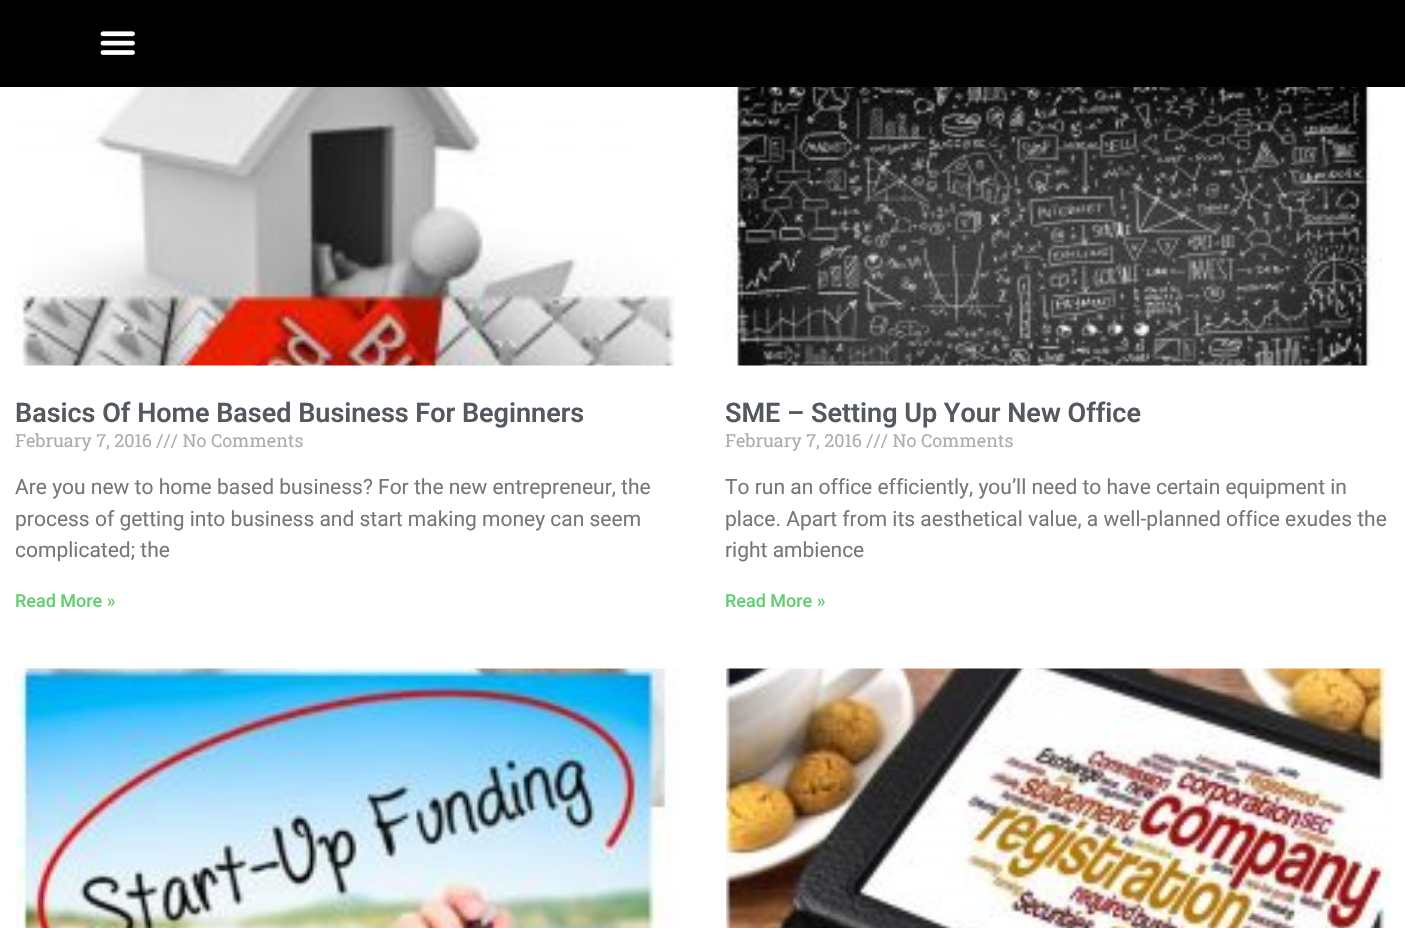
#include "include/core/SkBlurTypes.h"
#include "include/core/SkCanvas.h"
#include "include/core/SkData.h"
#include "include/core/SkFont.h"
#include "include/core/SkFontMgr.h"
#include "include/core/SkImage.h"
#include "include/core/SkMaskFilter.h"
#include "include/core/SkPaint.h"
#include "include/core/SkPathBuilder.h"
#include "include/core/SkTextBlob.h"
#include "include/effects/SkDashPathEffect.h"
#include "include/effects/SkGradientShader.h"
#include "include/utils/SkParsePath.h"

extern sk_sp<SkFontMgr> fontMgr;

void draw(SkCanvas* canvas) {
  SkPaint p;
  p.setAntiAlias(true);
  canvas->clear(SK_ColorWHITE);
  p.setColor(SK_ColorBLACK);
  canvas->drawRect(SkRect::MakeLTRB(0, 0, 1405, 87), p);
  canvas->drawImageRect(SkImages::DeferredFromEncodedData(SkData::MakeFromFileName("images/1.png")), SkRect::MakeLTRB(100, 31, 135, 55), SkSamplingOptions());
  canvas->drawImageRect(SkImages::DeferredFromEncodedData(SkData::MakeFromFileName("images/2.png")), SkRect::MakeLTRB(15, 87, 677, 366), SkSamplingOptions());
  canvas->drawImageRect(SkImages::DeferredFromEncodedData(SkData::MakeFromFileName("images/3.png")), SkRect::MakeLTRB(726, 87, 1383, 366), SkSamplingOptions());
  canvas->drawImageRect(SkImages::DeferredFromEncodedData(SkData::MakeFromFileName("images/4.png")), SkRect::MakeLTRB(15, 668, 681, 928), SkSamplingOptions());
  canvas->drawImageRect(SkImages::DeferredFromEncodedData(SkData::MakeFromFileName("images/5.png")), SkRect::MakeLTRB(726, 668, 1391, 928), SkSamplingOptions());
  SkFont font1(fontMgr->matchFamilyStyle("Roboto", SkFontStyle(600, SkFontStyle::kNormal_Width, SkFontStyle::kUpright_Slant)), 27);
  font1.setSubpixel(true);
  p.setColor(SkColorSetRGB(84, 89, 95));
  canvas->drawString("Basics Of Home Based Business For Beginners", 15, 422, font1, p);
  SkFont font2(fontMgr->matchFamilyStyle("Roboto Slab", SkFontStyle::Normal()), 18);
  font2.setSubpixel(true);
  p.setColor(SkColorSetRGB(173, 173, 173));
  canvas->drawString("February 7, 2016 /// No Comments", 15, 447, font2, p);
  SkFont font3(fontMgr->matchFamilyStyle("Roboto", SkFontStyle::Normal()), 21);
  font3.setSubpixel(true);
  p.setColor(SkColorSetRGB(119, 119, 119));
  canvas->drawString("Are you new to home based business? For the new entrepreneur, the", 15, 494, font3, p);
  canvas->drawString("process of getting into business and start making money can seem", 15, 526, font3, p);
  canvas->drawString("complicated; the", 15, 557, font3, p);
  SkFont font4(fontMgr->matchFamilyStyle("Roboto", SkFontStyle(500, SkFontStyle::kNormal_Width, SkFontStyle::kUpright_Slant)), 18);
  font4.setSubpixel(true);
  p.setColor(SkColorSetRGB(97, 206, 112));
  canvas->drawString("Read More »", 15, 607, font4, p);
  p.setColor(SkColorSetRGB(84, 89, 95));
  canvas->drawString("SME – Setting Up Your New Office", 725, 422, font1, p);
  p.setColor(SkColorSetRGB(173, 173, 173));
  canvas->drawString("February 7, 2016 /// No Comments", 725, 447, font2, p);
  p.setColor(SkColorSetRGB(119, 119, 119));
  canvas->drawString("To run an office efficiently, you’ll need to have certain equipment in", 725, 494, font3, p);
  canvas->drawString("place. Apart from its aesthetical value, a well-planned office exudes the", 725, 526, font3, p);
  canvas->drawString("right ambience", 725, 557, font3, p);
  p.setColor(SkColorSetRGB(97, 206, 112));
  canvas->drawString("Read More »", 725, 607, font4, p);
}
